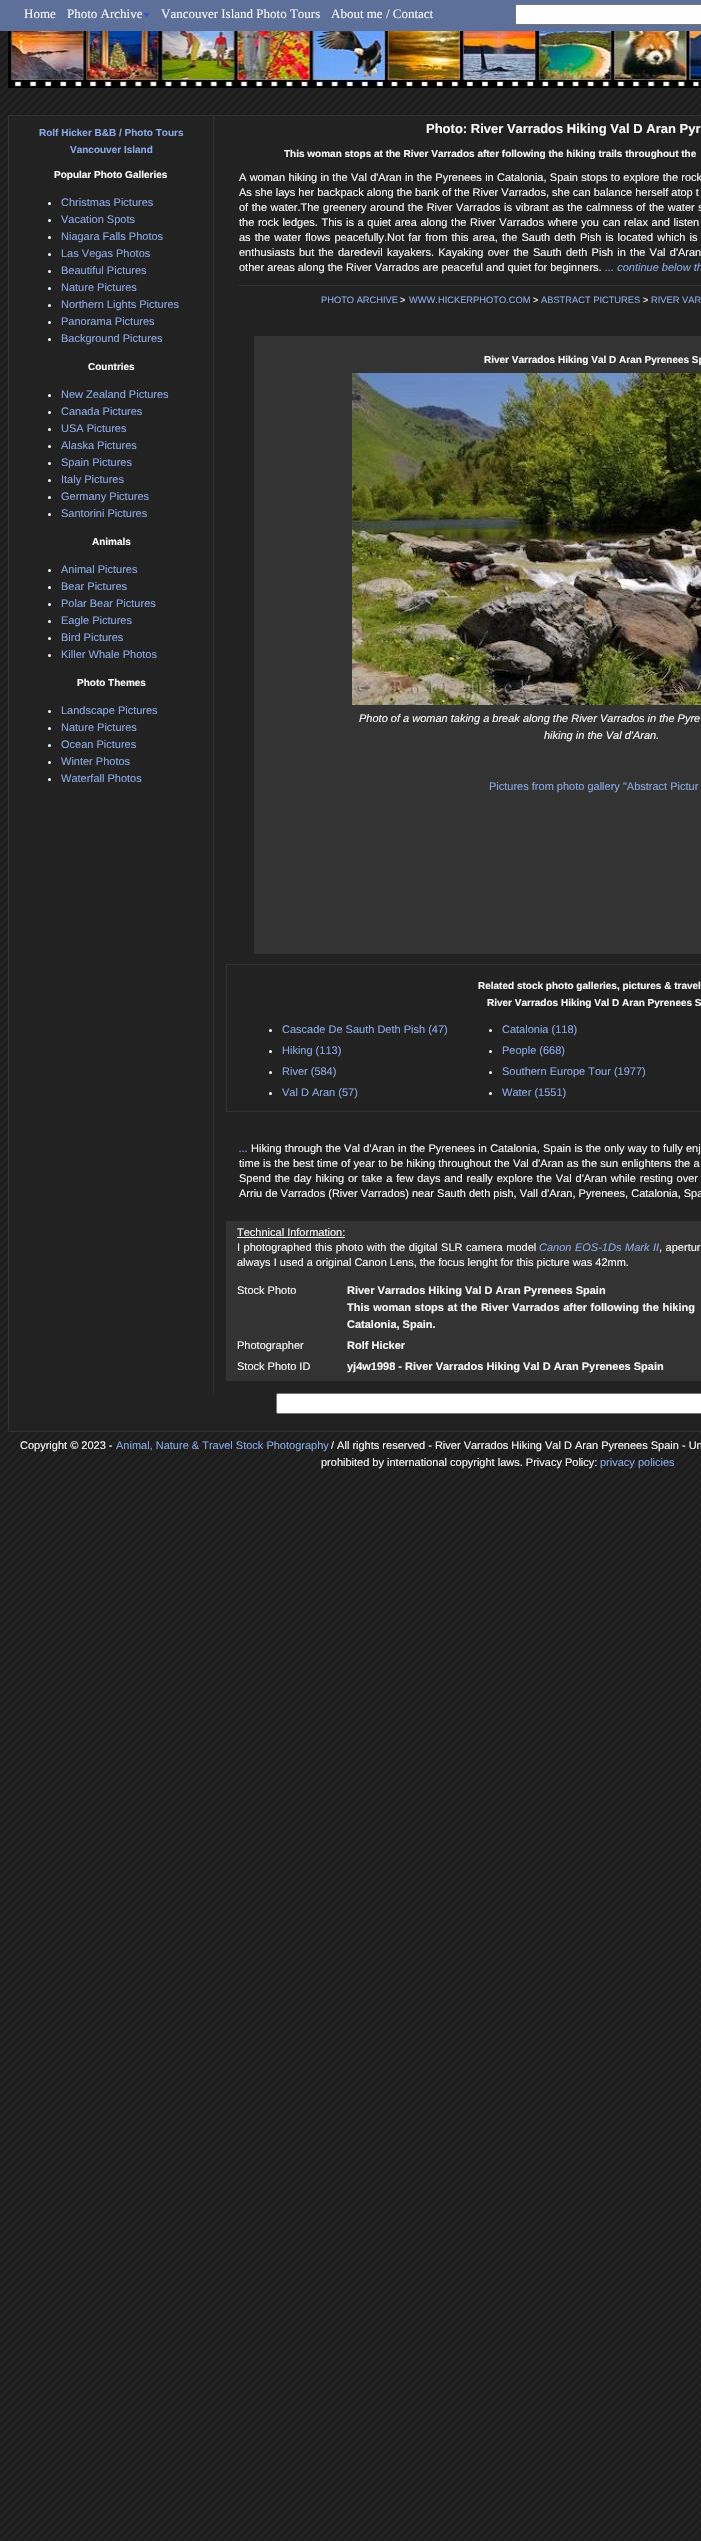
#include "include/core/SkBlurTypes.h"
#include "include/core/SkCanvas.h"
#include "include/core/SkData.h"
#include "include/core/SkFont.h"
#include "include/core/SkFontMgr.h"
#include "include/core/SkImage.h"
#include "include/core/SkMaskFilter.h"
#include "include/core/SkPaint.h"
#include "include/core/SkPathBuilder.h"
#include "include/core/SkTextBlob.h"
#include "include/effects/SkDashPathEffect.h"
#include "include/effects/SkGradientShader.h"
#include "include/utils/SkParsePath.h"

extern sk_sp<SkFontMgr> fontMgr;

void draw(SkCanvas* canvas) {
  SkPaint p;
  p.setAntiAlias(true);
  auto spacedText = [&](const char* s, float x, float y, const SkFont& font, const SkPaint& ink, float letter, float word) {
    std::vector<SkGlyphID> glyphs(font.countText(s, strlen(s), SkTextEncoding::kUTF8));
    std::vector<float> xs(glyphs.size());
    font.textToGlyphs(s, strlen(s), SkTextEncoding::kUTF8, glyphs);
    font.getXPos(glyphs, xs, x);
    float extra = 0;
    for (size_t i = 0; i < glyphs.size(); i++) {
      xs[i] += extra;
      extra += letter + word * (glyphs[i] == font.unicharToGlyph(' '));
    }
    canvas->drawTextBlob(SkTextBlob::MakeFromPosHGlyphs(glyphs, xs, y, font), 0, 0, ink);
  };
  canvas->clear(SK_ColorWHITE);
  canvas->drawImageRect(SkImages::DeferredFromEncodedData(SkData::MakeFromFileName("images/1.png")), SkRect::MakeLTRB(0, 31, 701, 2541), SkSamplingOptions());
  p.setColor(SkColorSetRGB(93, 112, 153));
  canvas->drawRect(SkRect::MakeLTRB(0, 0, 701, 31), p);
  canvas->drawImageRect(SkImages::DeferredFromEncodedData(SkData::MakeFromFileName("images/2.png")), SkRect::MakeLTRB(143, 13, 150, 17), SkSamplingOptions());
  p.setColor(SK_ColorWHITE);
  canvas->drawRoundRect(SkRect::MakeLTRB(515.5f, 4.5f, 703.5f, 24.5f), 1.5f, 1.5f, p);
  p.setStyle(SkPaint::kStroke_Style);
  p.setStrokeWidth(1);
  p.setColor(SkColorSetRGB(118, 118, 118));
  canvas->drawRoundRect(SkRect::MakeLTRB(515.5f, 4.5f, 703.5f, 24.5f), 1.5f, 1.5f, p);
  canvas->drawImageRect(SkImages::DeferredFromEncodedData(SkData::MakeFromFileName("images/3.png")), SkRect::MakeLTRB(8, 31, 701, 88), SkSamplingOptions());
  p.setStyle(SkPaint::kFill_Style);
  p.setColor(SkColorSetRGB(34, 34, 34));
  canvas->drawRect(SkRect::MakeLTRB(8.5f, 115.5f, 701.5f, 1431.5f), p);
  p.setStyle(SkPaint::kStroke_Style);
  p.setColor(SkColorSetRGB(51, 51, 51));
  canvas->drawRect(SkRect::MakeLTRB(8.5f, 115.5f, 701.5f, 1431.5f), p);
  p.setStyle(SkPaint::kFill_Style);
  p.setColor(SkColorSetRGB(248, 248, 248));
  canvas->drawCircle(49.5f, 203.5f, 1.5f, p);
  canvas->drawCircle(49.5f, 220.5f, 1.5f, p);
  canvas->drawCircle(49.5f, 237.5f, 1.5f, p);
  canvas->drawCircle(49.5f, 254.5f, 1.5f, p);
  canvas->drawCircle(49.5f, 271.5f, 1.5f, p);
  canvas->drawCircle(49.5f, 288.5f, 1.5f, p);
  canvas->drawCircle(49.5f, 305.5f, 1.5f, p);
  canvas->drawCircle(49.5f, 322.5f, 1.5f, p);
  canvas->drawCircle(49.5f, 339.5f, 1.5f, p);
  canvas->drawCircle(49.5f, 395.5f, 1.5f, p);
  canvas->drawCircle(49.5f, 412.5f, 1.5f, p);
  canvas->drawCircle(49.5f, 429.5f, 1.5f, p);
  canvas->drawCircle(49.5f, 446.5f, 1.5f, p);
  canvas->drawCircle(49.5f, 463.5f, 1.5f, p);
  canvas->drawCircle(49.5f, 480.5f, 1.5f, p);
  canvas->drawCircle(49.5f, 497.5f, 1.5f, p);
  canvas->drawCircle(49.5f, 514.5f, 1.5f, p);
  canvas->drawCircle(49.5f, 570.5f, 1.5f, p);
  canvas->drawCircle(49.5f, 587.5f, 1.5f, p);
  canvas->drawCircle(49.5f, 604.5f, 1.5f, p);
  canvas->drawCircle(49.5f, 621.5f, 1.5f, p);
  canvas->drawCircle(49.5f, 638.5f, 1.5f, p);
  canvas->drawCircle(49.5f, 655.5f, 1.5f, p);
  canvas->drawCircle(49.5f, 711.5f, 1.5f, p);
  canvas->drawCircle(49.5f, 728.5f, 1.5f, p);
  canvas->drawCircle(49.5f, 745.5f, 1.5f, p);
  canvas->drawCircle(49.5f, 762.5f, 1.5f, p);
  canvas->drawCircle(49.5f, 779.5f, 1.5f, p);
  p.setColor(SkColorSetRGB(51, 51, 51));
  canvas->drawRect(SkRect::MakeLTRB(213, 116, 214, 1393), p);
  canvas->drawRect(SkRect::MakeLTRB(239, 285, 701, 286), p);
  canvas->drawRect(SkRect::MakeLTRB(254, 336, 701, 954), p);
  canvas->drawImageRect(SkImages::DeferredFromEncodedData(SkData::MakeFromFileName("images/4.png")), SkRect::MakeLTRB(352, 373, 701, 705), SkSamplingOptions());
  p.setStyle(SkPaint::kStroke_Style);
  canvas->drawRect(SkRect::MakeLTRB(226.5f, 964.5f, 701.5f, 1111.5f), p);
  p.setStyle(SkPaint::kFill_Style);
  p.setColor(SkColorSetRGB(248, 248, 248));
  canvas->drawCircle(270.5f, 1030.5f, 1.5f, p);
  canvas->drawCircle(490.5f, 1030.5f, 1.5f, p);
  canvas->drawCircle(270.5f, 1051.5f, 1.5f, p);
  canvas->drawCircle(490.5f, 1051.5f, 1.5f, p);
  canvas->drawCircle(270.5f, 1072.5f, 1.5f, p);
  canvas->drawCircle(490.5f, 1072.5f, 1.5f, p);
  canvas->drawCircle(270.5f, 1093.5f, 1.5f, p);
  canvas->drawCircle(490.5f, 1093.5f, 1.5f, p);
  p.setColor(SkColorSetRGB(51, 51, 51));
  canvas->drawRect(SkRect::MakeLTRB(226, 1221, 701, 1381), p);
  p.setColor(SkColorSetRGB(248, 248, 248));
  canvas->drawRect(SkRect::MakeLTRB(237, 1237, 345, 1238), p);
  p.setColor(SK_ColorWHITE);
  canvas->drawRoundRect(SkRect::MakeLTRB(276.5f, 1393.5f, 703.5f, 1413.5f), 1.5f, 1.5f, p);
  p.setStyle(SkPaint::kStroke_Style);
  p.setColor(SkColorSetRGB(118, 118, 118));
  canvas->drawRoundRect(SkRect::MakeLTRB(276.5f, 1393.5f, 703.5f, 1413.5f), 1.5f, 1.5f, p);
  SkFont font1(fontMgr->matchFamilyStyle("Liberation Serif", SkFontStyle::Normal()), 13);
  font1.setSubpixel(true);
  p.setStyle(SkPaint::kFill_Style);
  p.setColor(SkColorSetRGB(242, 242, 242));
  canvas->drawString("Home", 24, 18, font1, p);
  canvas->drawString("Photo Archive", 67, 18, font1, p);
  canvas->drawString("Vancouver Island Photo Tours", 161, 18, font1, p);
  canvas->drawString("About me / Contact", 331, 18, font1, p);
  SkFont font2(fontMgr->matchFamilyStyle("Liberation Sans", SkFontStyle::Bold()), 10);
  font2.setSubpixel(true);
  p.setColor(SkColorSetRGB(139, 168, 229));
  canvas->drawString("Rolf Hicker B&B / Photo Tours", 39, 136, font2, p);
  canvas->drawString("Vancouver Island", 70, 153, font2, p);
  p.setColor(SkColorSetRGB(248, 248, 248));
  canvas->drawString("Popular Photo Galleries", 54, 178, font2, p);
  SkFont font3(fontMgr->matchFamilyStyle("Liberation Sans", SkFontStyle::Normal()), 11);
  font3.setSubpixel(true);
  p.setColor(SkColorSetRGB(139, 168, 229));
  canvas->drawString("Christmas Pictures", 61, 206, font3, p);
  canvas->drawString("Vacation Spots", 61, 223, font3, p);
  canvas->drawString("Niagara Falls Photos", 61, 240, font3, p);
  canvas->drawString("Las Vegas Photos", 61, 257, font3, p);
  canvas->drawString("Beautiful Pictures", 61, 274, font3, p);
  canvas->drawString("Nature Pictures", 61, 291, font3, p);
  canvas->drawString("Northern Lights Pictures", 61, 308, font3, p);
  canvas->drawString("Panorama Pictures", 61, 325, font3, p);
  canvas->drawString("Background Pictures", 61, 342, font3, p);
  p.setColor(SkColorSetRGB(248, 248, 248));
  canvas->drawString("Countries", 88, 370, font2, p);
  p.setColor(SkColorSetRGB(139, 168, 229));
  canvas->drawString("New Zealand Pictures", 61, 398, font3, p);
  canvas->drawString("Canada Pictures", 61, 415, font3, p);
  canvas->drawString("USA Pictures", 61, 432, font3, p);
  canvas->drawString("Alaska Pictures", 61, 449, font3, p);
  canvas->drawString("Spain Pictures", 61, 466, font3, p);
  canvas->drawString("Italy Pictures", 61, 483, font3, p);
  canvas->drawString("Germany Pictures", 61, 500, font3, p);
  canvas->drawString("Santorini Pictures", 61, 517, font3, p);
  p.setColor(SkColorSetRGB(248, 248, 248));
  canvas->drawString("Animals", 92, 545, font2, p);
  p.setColor(SkColorSetRGB(139, 168, 229));
  canvas->drawString("Animal Pictures", 61, 573, font3, p);
  canvas->drawString("Bear Pictures", 61, 590, font3, p);
  canvas->drawString("Polar Bear Pictures", 61, 607, font3, p);
  canvas->drawString("Eagle Pictures", 61, 624, font3, p);
  canvas->drawString("Bird Pictures", 61, 641, font3, p);
  canvas->drawString("Killer Whale Photos", 61, 658, font3, p);
  p.setColor(SkColorSetRGB(248, 248, 248));
  canvas->drawString("Photo Themes", 77, 686, font2, p);
  p.setColor(SkColorSetRGB(139, 168, 229));
  canvas->drawString("Landscape Pictures", 61, 714, font3, p);
  canvas->drawString("Nature Pictures", 61, 731, font3, p);
  canvas->drawString("Ocean Pictures", 61, 748, font3, p);
  canvas->drawString("Winter Photos", 61, 765, font3, p);
  canvas->drawString("Waterfall Photos", 61, 782, font3, p);
  SkFont font4(fontMgr->matchFamilyStyle("Liberation Sans", SkFontStyle::Bold()), 13);
  font4.setSubpixel(true);
  p.setColor(SkColorSetRGB(248, 248, 248));
  canvas->drawString("Photo: River Varrados Hiking Val D Aran Pyr", 426, 133, font4, p);
  canvas->drawString("This woman stops at the River Varrados after following the hiking trails throughout the", 284, 157, font2, p);
  spacedText("A woman hiking in the Val d'Aran in the Pyrenees in Catalonia, Spain stops to explore the rock", 239, 181, font3, p, 0, 0.25f);
  canvas->drawString("As she lays her backpack along the bank of the River Varrados, she can balance herself atop t", 239, 196, font3, p);
  spacedText("of the water.The greenery around the River Varrados is vibrant as the calmness of the water s", 239, 211, font3, p, 0, 0.5f);
  spacedText("the rock ledges. This is a quiet area along the River Varrados where you can relax and listen", 239, 226, font3, p, 0, 0.6f);
  spacedText("as the water flows peacefully.Not far from this area, the Sauth deth Pish is located which is", 239, 241, font3, p, 0, 1.1f);
  spacedText("enthusiasts but the daredevil kayakers. Kayaking over the Sauth deth Pish in the Val d'Aran", 239, 256, font3, p, 0, 1.2f);
  canvas->drawString("other areas along the River Varrados are peaceful and quiet for beginners.", 239, 271, font3, p);
  SkFont font5(fontMgr->matchFamilyStyle("Liberation Sans", SkFontStyle::Italic()), 11);
  font5.setSubpixel(true);
  p.setColor(SkColorSetRGB(139, 168, 229));
  canvas->drawString("... continue below th", 605, 271, font5, p);
  SkFont font6(fontMgr->matchFamilyStyle("Liberation Sans", SkFontStyle::Normal()), 9.3f);
  font6.setSubpixel(true);
  canvas->drawString("PHOTO ARCHIVE", 321, 303, font6, p);
  p.setColor(SkColorSetRGB(248, 248, 248));
  canvas->drawString(">", 400, 303, font6, p);
  p.setColor(SkColorSetRGB(139, 168, 229));
  canvas->drawString("WWW.HICKERPHOTO.COM", 409, 303, font6, p);
  p.setColor(SkColorSetRGB(248, 248, 248));
  canvas->drawString(">", 533, 303, font6, p);
  p.setColor(SkColorSetRGB(139, 168, 229));
  canvas->drawString("ABSTRACT PICTURES", 541, 303, font6, p);
  p.setColor(SkColorSetRGB(248, 248, 248));
  canvas->drawString(">", 643, 303, font6, p);
  p.setColor(SkColorSetRGB(139, 168, 229));
  canvas->drawString("RIVER VAR", 651, 303, font6, p);
  p.setColor(SkColorSetRGB(248, 248, 248));
  canvas->drawString("River Varrados Hiking Val D Aran Pyrenees Sp", 484, 363, font2, p);
  canvas->drawString("Photo of a woman taking a break along the River Varrados in the Pyre", 359, 722, font5, p);
  canvas->drawString("hiking in the Val d'Aran.", 544, 739, font5, p);
  p.setColor(SkColorSetRGB(139, 168, 229));
  canvas->drawString("Pictures from photo gallery \"Abstract Pictur", 489, 790, font3, p);
  p.setColor(SkColorSetRGB(248, 248, 248));
  canvas->drawString("Related stock photo galleries, pictures & travel", 478, 989, font2, p);
  canvas->drawString("River Varrados Hiking Val D Aran Pyrenees S", 487, 1006, font2, p);
  p.setColor(SkColorSetRGB(139, 168, 229));
  canvas->drawString("Cascade De Sauth Deth Pish (47)", 282, 1033, font3, p);
  canvas->drawString("Catalonia (118)", 502, 1033, font3, p);
  canvas->drawString("Hiking (113)", 282, 1054, font3, p);
  canvas->drawString("People (668)", 502, 1054, font3, p);
  canvas->drawString("River (584)", 282, 1075, font3, p);
  canvas->drawString("Southern Europe Tour (1977)", 502, 1075, font3, p);
  canvas->drawString("Val D Aran (57)", 282, 1096, font3, p);
  canvas->drawString("Water (1551)", 502, 1096, font3, p);
  canvas->drawString("...", 239, 1152, font5, p);
  p.setColor(SkColorSetRGB(248, 248, 248));
  spacedText("Hiking through the Val d'Aran in the Pyrenees in Catalonia, Spain is the only way to fully enj", 251, 1152, font3, p, 0, 0.25f);
  spacedText("time is the best time of year to be hiking throughout the Val d'Aran as the sun enlightens the a", 239, 1167, font3, p, 0, 0.25f);
  spacedText("Spend the day hiking or take a few days and really explore the Val d'Aran while resting over", 239, 1182, font3, p, 0, 0.8f);
  canvas->drawString("Arriu de Varrados (River Varrados) near Sauth deth pish, Vall d'Aran, Pyrenees, Catalonia, Spa", 239, 1197, font3, p);
  canvas->drawString("Technical Information:", 237, 1236, font3, p);
  spacedText("I photographed this photo with the digital SLR camera model", 237, 1251, font3, p, 0, 0.5f);
  p.setColor(SkColorSetRGB(139, 168, 229));
  spacedText("Canon EOS-1Ds Mark II", 539, 1251, font5, p, 0, 0.5f);
  p.setColor(SkColorSetRGB(248, 248, 248));
  spacedText(", apertur", 659, 1251, font3, p, 0, 0.5f);
  canvas->drawString("always I used a original Canon Lens, the focus lenght for this picture was 42mm.", 237, 1266, font3, p);
  canvas->drawString("Stock Photo", 237, 1294, font3, p);
  SkFont font7(fontMgr->matchFamilyStyle("Liberation Sans", SkFontStyle::Bold()), 11);
  font7.setSubpixel(true);
  canvas->drawString("River Varrados Hiking Val D Aran Pyrenees Spain", 347, 1294, font7, p);
  spacedText("This woman stops at the River Varrados after following the hiking", 347, 1311, font7, p, 0, 0.5f);
  canvas->drawString("Catalonia, Spain.", 347, 1328, font7, p);
  canvas->drawString("Photographer", 237, 1349, font3, p);
  canvas->drawString("Rolf Hicker", 347, 1349, font7, p);
  canvas->drawString("Stock Photo ID", 237, 1370, font3, p);
  canvas->drawString("yj4w1998 - River Varrados Hiking Val D Aran Pyrenees Spain", 347, 1370, font7, p);
  canvas->drawString("Copyright © 2023 -", 20, 1449, font3, p);
  p.setColor(SkColorSetRGB(139, 168, 229));
  canvas->drawString("Animal, Nature & Travel Stock Photography", 116, 1449, font3, p);
  p.setColor(SkColorSetRGB(248, 248, 248));
  canvas->drawString("/ All rights reserved - River Varrados Hiking Val D Aran Pyrenees Spain - Un", 331, 1449, font3, p);
  canvas->drawString("prohibited by international copyright laws. Privacy Policy:", 321, 1466, font3, p);
  p.setColor(SkColorSetRGB(139, 168, 229));
  canvas->drawString("privacy policies", 600, 1466, font3, p);
}
